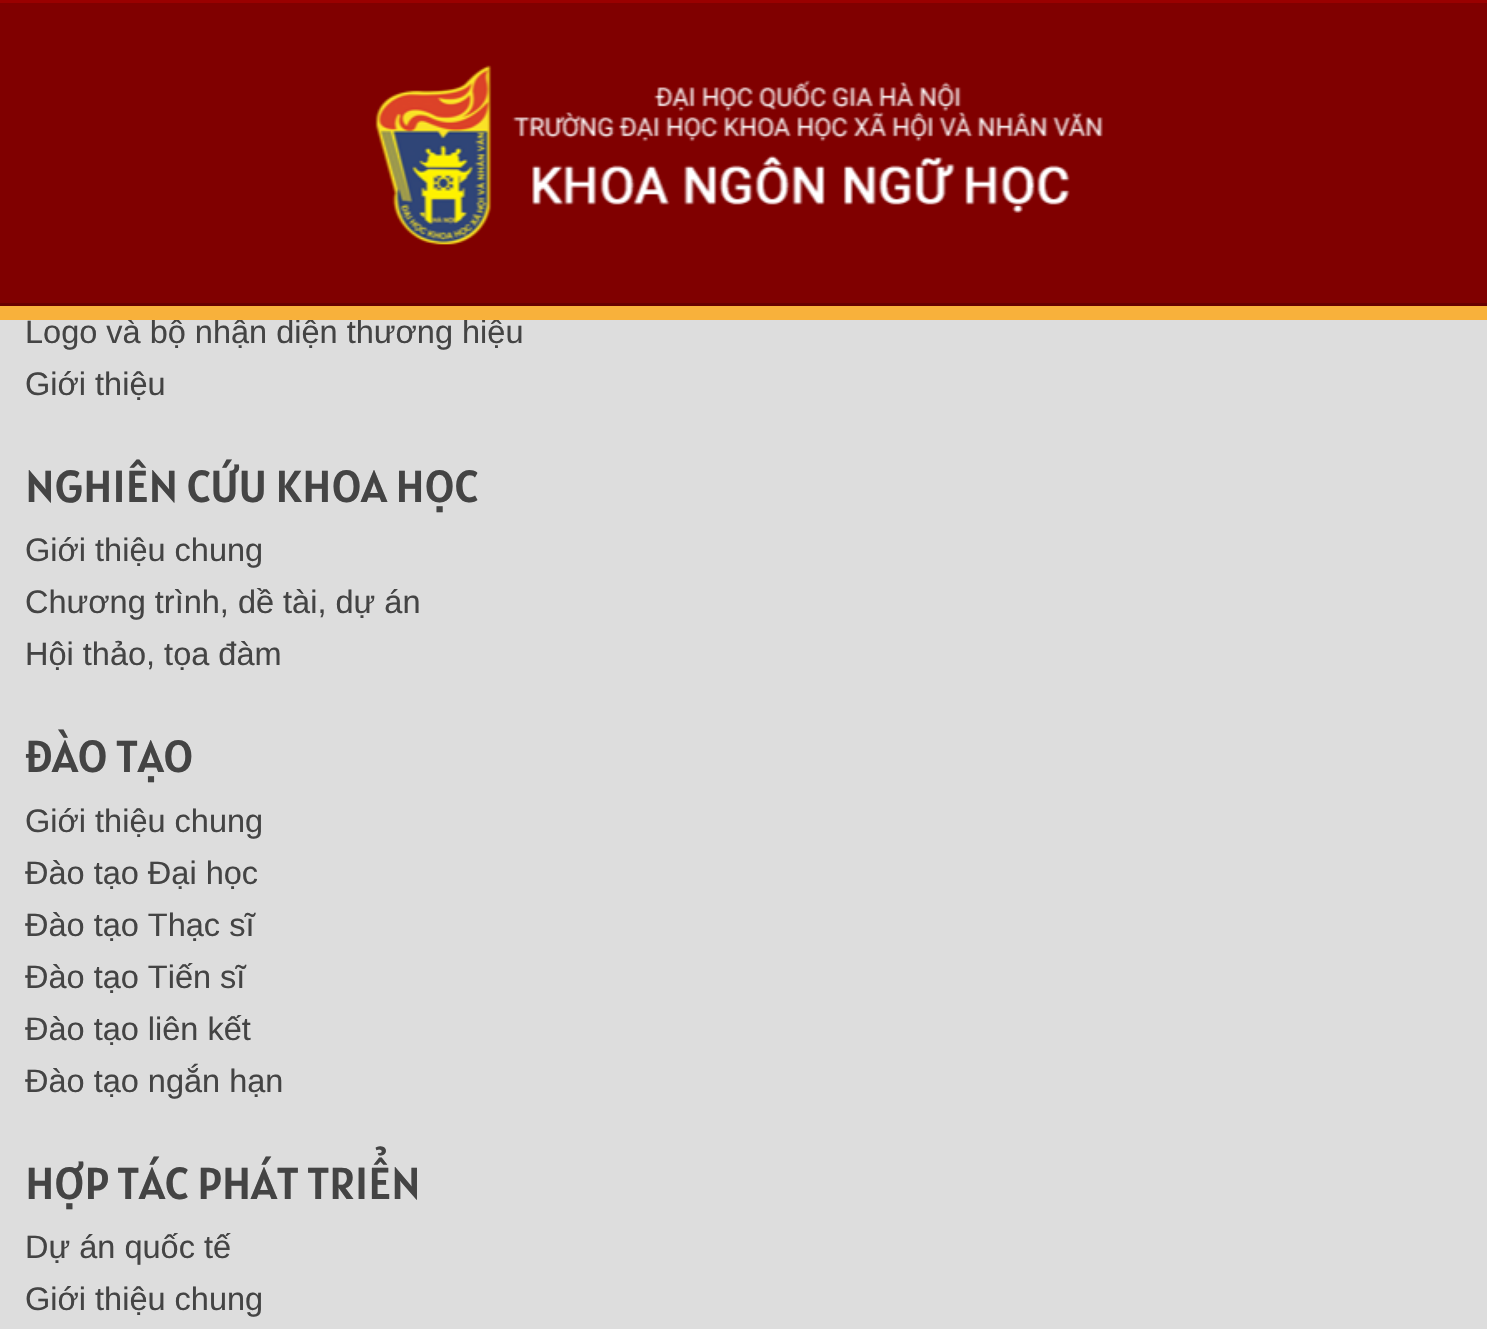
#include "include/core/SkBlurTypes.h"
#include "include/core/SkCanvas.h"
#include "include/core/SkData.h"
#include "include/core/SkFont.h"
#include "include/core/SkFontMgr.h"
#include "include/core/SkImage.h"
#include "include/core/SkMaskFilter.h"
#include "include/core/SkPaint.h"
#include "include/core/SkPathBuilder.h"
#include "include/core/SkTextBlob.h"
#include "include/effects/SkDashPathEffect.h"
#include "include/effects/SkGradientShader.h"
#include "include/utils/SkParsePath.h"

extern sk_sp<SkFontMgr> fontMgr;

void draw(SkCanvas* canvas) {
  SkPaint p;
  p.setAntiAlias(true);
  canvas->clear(SkColorSetRGB(221, 221, 221));
  p.setColor(SkColorSetRGB(128, 0, 0));
  canvas->drawRect(SkRect::MakeLTRB(0, 3, 1487, 303), p);
  p.setColor(SkColorSetRGB(154, 0, 0));
  canvas->drawRect(SkRect::MakeLTRB(0, 0, 1487, 3), p);
  p.setColor(SkColorSetRGB(103, 0, 0));
  canvas->drawRect(SkRect::MakeLTRB(0, 303, 1487, 306), p);
  canvas->drawImageRect(SkImages::DeferredFromEncodedData(SkData::MakeFromFileName("images/1.png")), SkRect::MakeLTRB(375, 65, 1103, 245), SkSamplingOptions());
  SkFont font1(fontMgr->matchFamilyStyle("Liberation Sans", SkFontStyle::Normal()), 32.5f);
  font1.setSubpixel(true);
  p.setColor(SkColorSetRGB(68, 68, 68));
  canvas->drawString("Logo và bộ nhận diện thương hiệu", 25, 343, font1, p);
  p.setColor(SkColorSetRGB(248, 177, 59));
  canvas->drawRect(SkRect::MakeLTRB(0, 306, 1487, 320), p);
  p.setColor(SkColorSetRGB(68, 68, 68));
  canvas->drawString("Giới thiệu", 25, 395, font1, p);
  SkFont font2(fontMgr->matchFamilyStyle("Alatsi", SkFontStyle::Normal()), 45);
  font2.setSubpixel(true);
  canvas->drawString("NGHIÊN CỨU KHOA HỌC", 25, 502, font2, p);
  canvas->drawString("Giới thiệu chung", 25, 561, font1, p);
  canvas->drawString("Chương trình, dề tài, dự án", 25, 613, font1, p);
  canvas->drawString("Hội thảo, tọa đàm", 25, 665, font1, p);
  canvas->drawString("ĐÀO TẠO", 25, 772, font2, p);
  canvas->drawString("Giới thiệu chung", 25, 832, font1, p);
  canvas->drawString("Đào tạo Đại học", 25, 884, font1, p);
  canvas->drawString("Đào tạo Thạc sĩ", 25, 936, font1, p);
  canvas->drawString("Đào tạo Tiến sĩ", 25, 988, font1, p);
  canvas->drawString("Đào tạo liên kết", 25, 1040, font1, p);
  canvas->drawString("Đào tạo ngắn hạn", 25, 1092, font1, p);
  canvas->drawString("HỢP TÁC PHÁT TRIỂN", 25, 1199, font2, p);
  canvas->drawString("Dự án quốc tế", 25, 1258, font1, p);
  canvas->drawString("Giới thiệu chung", 25, 1310, font1, p);
}
